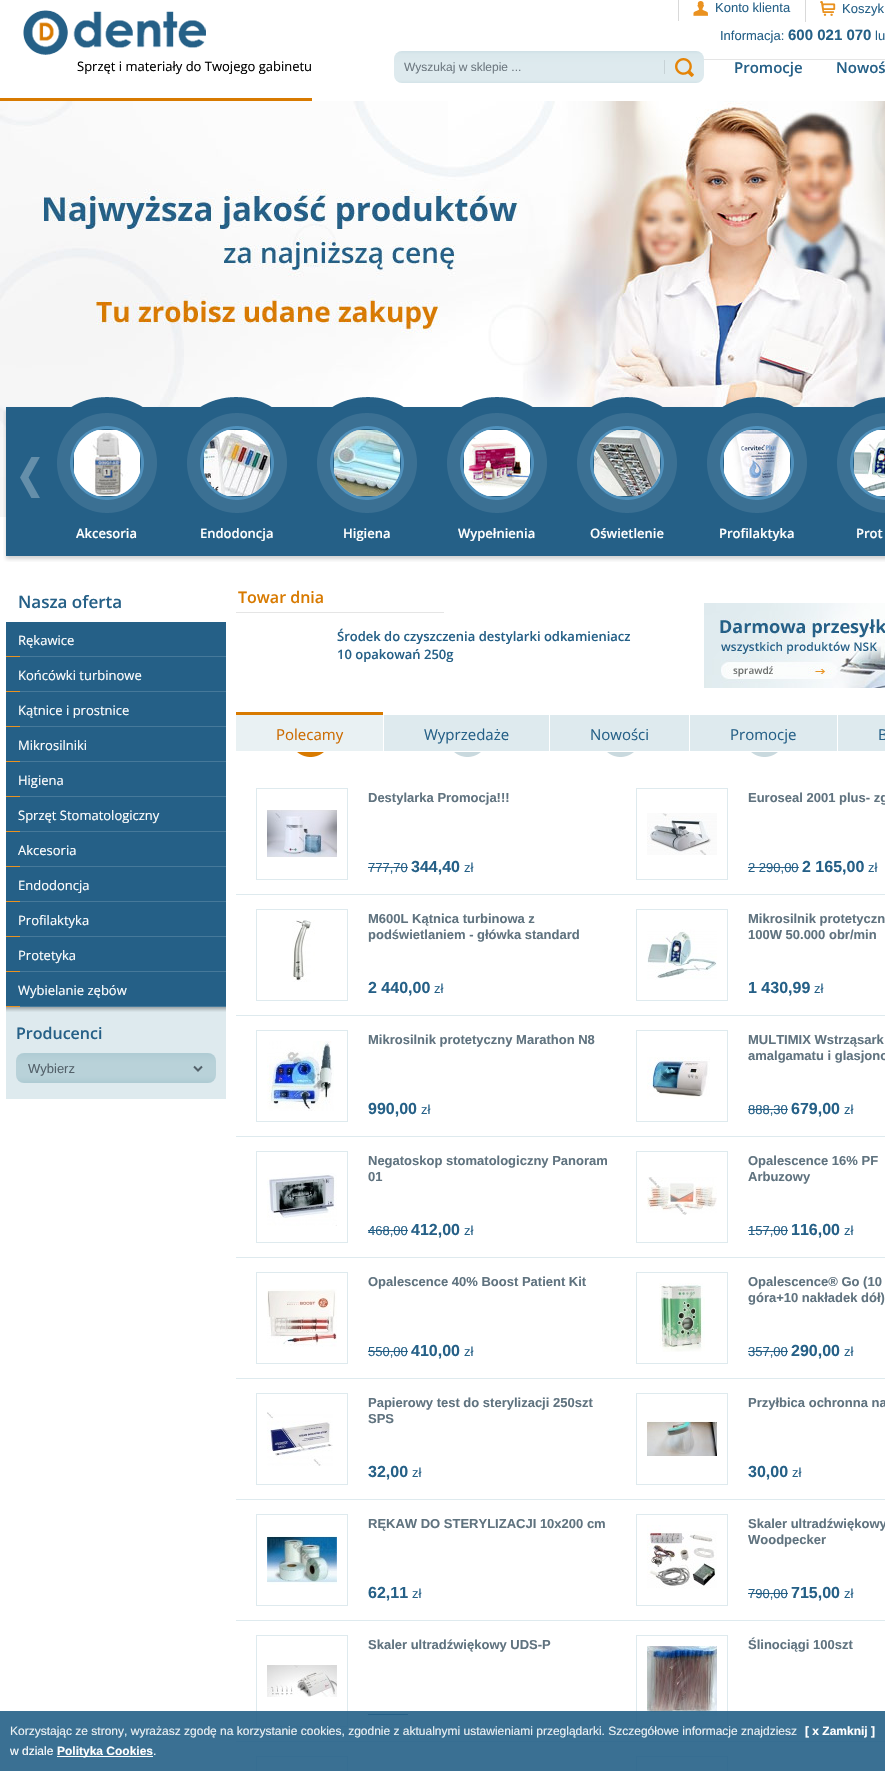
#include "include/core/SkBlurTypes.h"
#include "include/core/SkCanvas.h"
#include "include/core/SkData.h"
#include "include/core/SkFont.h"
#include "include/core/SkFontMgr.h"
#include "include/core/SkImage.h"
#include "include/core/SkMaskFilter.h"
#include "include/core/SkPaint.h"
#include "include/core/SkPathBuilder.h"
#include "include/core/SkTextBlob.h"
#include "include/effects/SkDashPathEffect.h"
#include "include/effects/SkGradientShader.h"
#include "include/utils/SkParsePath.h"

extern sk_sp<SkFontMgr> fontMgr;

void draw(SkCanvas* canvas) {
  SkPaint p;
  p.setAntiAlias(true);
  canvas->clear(SK_ColorWHITE);
  p.setColor(SkColorSetRGB(216, 122, 0));
  canvas->drawRect(SkRect::MakeLTRB(0, 98, 312, 101), p);
  canvas->drawImageRect(SkImages::DeferredFromEncodedData(SkData::MakeFromFileName("images/1.png")), SkRect::MakeLTRB(23, 10, 206, 55), SkSamplingOptions());
  p.setColor(SkColorSetRGB(229, 229, 229));
  canvas->drawRect(SkRect::MakeLTRB(704, 59, 885, 60), p);
  canvas->drawImageRect(SkImages::DeferredFromEncodedData(SkData::MakeFromFileName("images/2.png")), SkRect::MakeLTRB(693, 1, 708, 16), SkSamplingOptions());
  p.setColor(SkColorSetRGB(217, 217, 217));
  canvas->drawRect(SkRect::MakeLTRB(678, 0, 679, 21), p);
  canvas->drawImageRect(SkImages::DeferredFromEncodedData(SkData::MakeFromFileName("images/3.png")), SkRect::MakeLTRB(820, 1, 836, 16), SkSamplingOptions());
  canvas->drawRect(SkRect::MakeLTRB(805, 0, 806, 22), p);
  canvas->drawImageRect(SkImages::DeferredFromEncodedData(SkData::MakeFromFileName("images/4.png")), SkRect::MakeLTRB(394, 51, 704, 83), SkSamplingOptions());
  p.setColor(SkColorSetRGB(199, 210, 214));
  canvas->drawRect(SkRect::MakeLTRB(664, 60, 665, 74), p);
  canvas->drawImageRect(SkImages::DeferredFromEncodedData(SkData::MakeFromFileName("images/5.png")), SkRect::MakeLTRB(675, 58, 694, 77), SkSamplingOptions());
  canvas->drawImageRect(SkImages::DeferredFromEncodedData(SkData::MakeFromFileName("images/6.png")), SkRect::MakeLTRB(0, 101, 885, 517), SkSamplingOptions());
  canvas->drawImageRect(SkImages::DeferredFromEncodedData(SkData::MakeFromFileName("images/7.png")), SkRect::MakeLTRB(3, 397, 885, 562), SkSamplingOptions());
  canvas->drawImageRect(SkImages::DeferredFromEncodedData(SkData::MakeFromFileName("images/8.png")), SkRect::MakeLTRB(20, 457, 40, 498), SkSamplingOptions());
  canvas->drawImageRect(SkImages::DeferredFromEncodedData(SkData::MakeFromFileName("images/10.png")), SkRect::MakeLTRB(74, 430, 140, 496), SkSamplingOptions());
  canvas->drawImageRect(SkImages::DeferredFromEncodedData(SkData::MakeFromFileName("images/9.png")), SkRect::MakeLTRB(57, 413, 157, 513), SkSamplingOptions());
  canvas->drawImageRect(SkImages::DeferredFromEncodedData(SkData::MakeFromFileName("images/12.png")), SkRect::MakeLTRB(204, 430, 270, 496), SkSamplingOptions());
  canvas->drawImageRect(SkImages::DeferredFromEncodedData(SkData::MakeFromFileName("images/11.png")), SkRect::MakeLTRB(187, 413, 287, 513), SkSamplingOptions());
  canvas->drawImageRect(SkImages::DeferredFromEncodedData(SkData::MakeFromFileName("images/14.png")), SkRect::MakeLTRB(334, 430, 400, 496), SkSamplingOptions());
  canvas->drawImageRect(SkImages::DeferredFromEncodedData(SkData::MakeFromFileName("images/13.png")), SkRect::MakeLTRB(317, 413, 417, 513), SkSamplingOptions());
  canvas->drawImageRect(SkImages::DeferredFromEncodedData(SkData::MakeFromFileName("images/16.png")), SkRect::MakeLTRB(464, 430, 530, 496), SkSamplingOptions());
  canvas->drawImageRect(SkImages::DeferredFromEncodedData(SkData::MakeFromFileName("images/15.png")), SkRect::MakeLTRB(447, 413, 547, 513), SkSamplingOptions());
  canvas->drawImageRect(SkImages::DeferredFromEncodedData(SkData::MakeFromFileName("images/18.png")), SkRect::MakeLTRB(594, 430, 660, 496), SkSamplingOptions());
  canvas->drawImageRect(SkImages::DeferredFromEncodedData(SkData::MakeFromFileName("images/17.png")), SkRect::MakeLTRB(577, 413, 677, 513), SkSamplingOptions());
  canvas->drawImageRect(SkImages::DeferredFromEncodedData(SkData::MakeFromFileName("images/20.png")), SkRect::MakeLTRB(724, 430, 790, 496), SkSamplingOptions());
  canvas->drawImageRect(SkImages::DeferredFromEncodedData(SkData::MakeFromFileName("images/19.png")), SkRect::MakeLTRB(707, 413, 807, 513), SkSamplingOptions());
  canvas->drawImageRect(SkImages::DeferredFromEncodedData(SkData::MakeFromFileName("images/22.png")), SkRect::MakeLTRB(854, 430, 885, 496), SkSamplingOptions());
  canvas->drawImageRect(SkImages::DeferredFromEncodedData(SkData::MakeFromFileName("images/21.png")), SkRect::MakeLTRB(837, 413, 885, 513), SkSamplingOptions());
  p.setColor(SkColorSetRGB(37, 96, 135));
  canvas->drawRect(SkRect::MakeLTRB(6, 622, 226, 1006), p);
  canvas->drawImageRect(SkImages::DeferredFromEncodedData(SkData::MakeFromFileName("images/23.png")), SkRect::MakeLTRB(6, 656, 226, 657), SkSamplingOptions());
  canvas->drawImageRect(SkImages::DeferredFromEncodedData(SkData::MakeFromFileName("images/23.png")), SkRect::MakeLTRB(6, 691, 226, 692), SkSamplingOptions());
  canvas->drawImageRect(SkImages::DeferredFromEncodedData(SkData::MakeFromFileName("images/23.png")), SkRect::MakeLTRB(6, 726, 226, 727), SkSamplingOptions());
  canvas->drawImageRect(SkImages::DeferredFromEncodedData(SkData::MakeFromFileName("images/23.png")), SkRect::MakeLTRB(6, 761, 226, 762), SkSamplingOptions());
  canvas->drawImageRect(SkImages::DeferredFromEncodedData(SkData::MakeFromFileName("images/23.png")), SkRect::MakeLTRB(6, 796, 226, 797), SkSamplingOptions());
  canvas->drawImageRect(SkImages::DeferredFromEncodedData(SkData::MakeFromFileName("images/23.png")), SkRect::MakeLTRB(6, 831, 226, 832), SkSamplingOptions());
  canvas->drawImageRect(SkImages::DeferredFromEncodedData(SkData::MakeFromFileName("images/23.png")), SkRect::MakeLTRB(6, 866, 226, 867), SkSamplingOptions());
  canvas->drawImageRect(SkImages::DeferredFromEncodedData(SkData::MakeFromFileName("images/23.png")), SkRect::MakeLTRB(6, 901, 226, 902), SkSamplingOptions());
  canvas->drawImageRect(SkImages::DeferredFromEncodedData(SkData::MakeFromFileName("images/23.png")), SkRect::MakeLTRB(6, 936, 226, 937), SkSamplingOptions());
  canvas->drawImageRect(SkImages::DeferredFromEncodedData(SkData::MakeFromFileName("images/23.png")), SkRect::MakeLTRB(6, 971, 226, 972), SkSamplingOptions());
  canvas->drawImageRect(SkImages::DeferredFromEncodedData(SkData::MakeFromFileName("images/23.png")), SkRect::MakeLTRB(6, 1006, 226, 1007), SkSamplingOptions());
  p.setColor(SkColorSetRGB(222, 234, 238));
  canvas->drawRect(SkRect::MakeLTRB(6, 1012, 226, 1099), p);
  canvas->drawImageRect(SkImages::DeferredFromEncodedData(SkData::MakeFromFileName("images/24.png")), SkRect::MakeLTRB(6, 1007, 226, 1012), SkSamplingOptions());
  canvas->drawImageRect(SkImages::DeferredFromEncodedData(SkData::MakeFromFileName("images/25.png")), SkRect::MakeLTRB(16, 1053, 216, 1083), SkSamplingOptions());
  p.setStyle(SkPaint::kStroke_Style);
  p.setStrokeWidth(2);
  p.setColor(SkColorSetRGB(83, 97, 106));
  canvas->drawPath(SkPathBuilder().moveTo(194, 1066.5f).lineTo(198, 1070.5f).lineTo(202, 1066.5f).detach(), p);
  p.setStyle(SkPaint::kFill_Style);
  p.setColor(SkColorSetRGB(229, 229, 229));
  canvas->drawRect(SkRect::MakeLTRB(236, 612, 444, 613), p);
  canvas->drawImageRect(SkImages::DeferredFromEncodedData(SkData::MakeFromFileName("images/26.png")), SkRect::MakeLTRB(704, 603, 885, 688), SkSamplingOptions());
  canvas->drawImageRect(SkImages::DeferredFromEncodedData(SkData::MakeFromFileName("images/27.png")), SkRect::MakeLTRB(297, 752, 324, 757), SkSamplingOptions());
  p.setColor(SkColorSetRGB(233, 241, 243));
  canvas->drawRect(SkRect::MakeLTRB(236, 715, 383, 751), p);
  p.setColor(SkColorSetRGB(216, 122, 0));
  canvas->drawRect(SkRect::MakeLTRB(236, 712, 383, 715), p);
  canvas->drawImageRect(SkImages::DeferredFromEncodedData(SkData::MakeFromFileName("images/28.png")), SkRect::MakeLTRB(454, 752, 481, 757), SkSamplingOptions());
  p.setColor(SkColorSetRGB(222, 234, 238));
  canvas->drawRect(SkRect::MakeLTRB(384, 715, 549, 751), p);
  canvas->drawImageRect(SkImages::DeferredFromEncodedData(SkData::MakeFromFileName("images/28.png")), SkRect::MakeLTRB(607, 752, 634, 757), SkSamplingOptions());
  canvas->drawRect(SkRect::MakeLTRB(550, 715, 689, 751), p);
  canvas->drawImageRect(SkImages::DeferredFromEncodedData(SkData::MakeFromFileName("images/28.png")), SkRect::MakeLTRB(751, 752, 778, 757), SkSamplingOptions());
  canvas->drawRect(SkRect::MakeLTRB(690, 715, 837, 751), p);
  canvas->drawRect(SkRect::MakeLTRB(838, 715, 885, 751), p);
  canvas->drawRect(SkRect::MakeLTRB(236, 894, 885, 895), p);
  p.setStyle(SkPaint::kStroke_Style);
  p.setStrokeWidth(1);
  canvas->drawRect(SkRect::MakeLTRB(256.5f, 788.5f, 347.5f, 879.5f), p);
  canvas->drawImageRect(SkImages::DeferredFromEncodedData(SkData::MakeFromFileName("images/29.png")), SkRect::MakeLTRB(267, 810, 337, 857), SkSamplingOptions());
  p.setStyle(SkPaint::kFill_Style);
  p.setColor(SkColorSetRGB(37, 96, 135));
  canvas->drawRect(SkRect::MakeLTRB(368, 867, 408, 868), p);
  p.setStyle(SkPaint::kStroke_Style);
  p.setColor(SkColorSetRGB(222, 234, 238));
  canvas->drawRect(SkRect::MakeLTRB(636.5f, 788.5f, 727.5f, 879.5f), p);
  canvas->drawImageRect(SkImages::DeferredFromEncodedData(SkData::MakeFromFileName("images/30.png")), SkRect::MakeLTRB(647, 813, 717, 855), SkSamplingOptions());
  p.setStyle(SkPaint::kFill_Style);
  p.setColor(SkColorSetRGB(37, 96, 135));
  canvas->drawRect(SkRect::MakeLTRB(748, 867, 799, 868), p);
  p.setColor(SkColorSetRGB(222, 234, 238));
  canvas->drawRect(SkRect::MakeLTRB(236, 1015, 885, 1016), p);
  p.setStyle(SkPaint::kStroke_Style);
  canvas->drawRect(SkRect::MakeLTRB(256.5f, 909.5f, 347.5f, 1000.5f), p);
  canvas->drawImageRect(SkImages::DeferredFromEncodedData(SkData::MakeFromFileName("images/31.png")), SkRect::MakeLTRB(292, 920, 315, 982), SkSamplingOptions());
  canvas->drawRect(SkRect::MakeLTRB(636.5f, 909.5f, 727.5f, 1000.5f), p);
  canvas->drawImageRect(SkImages::DeferredFromEncodedData(SkData::MakeFromFileName("images/32.png")), SkRect::MakeLTRB(647, 929, 717, 980), SkSamplingOptions());
  p.setStyle(SkPaint::kFill_Style);
  canvas->drawRect(SkRect::MakeLTRB(236, 1136, 885, 1137), p);
  p.setStyle(SkPaint::kStroke_Style);
  canvas->drawRect(SkRect::MakeLTRB(256.5f, 1030.5f, 347.5f, 1121.5f), p);
  canvas->drawImageRect(SkImages::DeferredFromEncodedData(SkData::MakeFromFileName("images/33.png")), SkRect::MakeLTRB(267, 1041, 334, 1111), SkSamplingOptions());
  canvas->drawRect(SkRect::MakeLTRB(636.5f, 1030.5f, 727.5f, 1121.5f), p);
  canvas->drawImageRect(SkImages::DeferredFromEncodedData(SkData::MakeFromFileName("images/34.png")), SkRect::MakeLTRB(647, 1057, 710, 1099), SkSamplingOptions());
  p.setStyle(SkPaint::kFill_Style);
  p.setColor(SkColorSetRGB(37, 96, 135));
  canvas->drawRect(SkRect::MakeLTRB(748, 1109, 788, 1110), p);
  p.setColor(SkColorSetRGB(222, 234, 238));
  canvas->drawRect(SkRect::MakeLTRB(236, 1257, 885, 1258), p);
  p.setStyle(SkPaint::kStroke_Style);
  canvas->drawRect(SkRect::MakeLTRB(256.5f, 1151.5f, 347.5f, 1242.5f), p);
  canvas->drawImageRect(SkImages::DeferredFromEncodedData(SkData::MakeFromFileName("images/35.png")), SkRect::MakeLTRB(267, 1173, 337, 1226), SkSamplingOptions());
  p.setStyle(SkPaint::kFill_Style);
  p.setColor(SkColorSetRGB(37, 96, 135));
  canvas->drawRect(SkRect::MakeLTRB(368, 1230, 408, 1231), p);
  p.setStyle(SkPaint::kStroke_Style);
  p.setColor(SkColorSetRGB(222, 234, 238));
  canvas->drawRect(SkRect::MakeLTRB(636.5f, 1151.5f, 727.5f, 1242.5f), p);
  canvas->drawImageRect(SkImages::DeferredFromEncodedData(SkData::MakeFromFileName("images/36.png")), SkRect::MakeLTRB(647, 1177, 717, 1215), SkSamplingOptions());
  p.setStyle(SkPaint::kFill_Style);
  p.setColor(SkColorSetRGB(37, 96, 135));
  canvas->drawRect(SkRect::MakeLTRB(748, 1230, 788, 1231), p);
  p.setColor(SkColorSetRGB(222, 234, 238));
  canvas->drawRect(SkRect::MakeLTRB(236, 1378, 885, 1379), p);
  p.setStyle(SkPaint::kStroke_Style);
  canvas->drawRect(SkRect::MakeLTRB(256.5f, 1272.5f, 347.5f, 1363.5f), p);
  canvas->drawImageRect(SkImages::DeferredFromEncodedData(SkData::MakeFromFileName("images/37.png")), SkRect::MakeLTRB(267, 1289, 337, 1347), SkSamplingOptions());
  p.setStyle(SkPaint::kFill_Style);
  p.setColor(SkColorSetRGB(37, 96, 135));
  canvas->drawRect(SkRect::MakeLTRB(368, 1351, 408, 1352), p);
  p.setStyle(SkPaint::kStroke_Style);
  p.setColor(SkColorSetRGB(222, 234, 238));
  canvas->drawRect(SkRect::MakeLTRB(636.5f, 1272.5f, 727.5f, 1363.5f), p);
  canvas->drawImageRect(SkImages::DeferredFromEncodedData(SkData::MakeFromFileName("images/38.png")), SkRect::MakeLTRB(659, 1283, 705, 1352), SkSamplingOptions());
  p.setStyle(SkPaint::kFill_Style);
  p.setColor(SkColorSetRGB(37, 96, 135));
  canvas->drawRect(SkRect::MakeLTRB(748, 1351, 788, 1352), p);
  p.setColor(SkColorSetRGB(222, 234, 238));
  canvas->drawRect(SkRect::MakeLTRB(236, 1499, 885, 1500), p);
  p.setStyle(SkPaint::kStroke_Style);
  canvas->drawRect(SkRect::MakeLTRB(256.5f, 1393.5f, 347.5f, 1484.5f), p);
  canvas->drawImageRect(SkImages::DeferredFromEncodedData(SkData::MakeFromFileName("images/39.png")), SkRect::MakeLTRB(267, 1412, 333, 1466), SkSamplingOptions());
  canvas->drawRect(SkRect::MakeLTRB(636.5f, 1393.5f, 727.5f, 1484.5f), p);
  canvas->drawImageRect(SkImages::DeferredFromEncodedData(SkData::MakeFromFileName("images/40.png")), SkRect::MakeLTRB(647, 1420, 717, 1456), SkSamplingOptions());
  p.setStyle(SkPaint::kFill_Style);
  canvas->drawRect(SkRect::MakeLTRB(236, 1620, 885, 1621), p);
  p.setStyle(SkPaint::kStroke_Style);
  canvas->drawRect(SkRect::MakeLTRB(256.5f, 1514.5f, 347.5f, 1605.5f), p);
  canvas->drawImageRect(SkImages::DeferredFromEncodedData(SkData::MakeFromFileName("images/41.png")), SkRect::MakeLTRB(267, 1536, 337, 1585), SkSamplingOptions());
  canvas->drawRect(SkRect::MakeLTRB(636.5f, 1514.5f, 727.5f, 1605.5f), p);
  canvas->drawImageRect(SkImages::DeferredFromEncodedData(SkData::MakeFromFileName("images/42.png")), SkRect::MakeLTRB(647, 1525, 717, 1589), SkSamplingOptions());
  p.setStyle(SkPaint::kFill_Style);
  p.setColor(SkColorSetRGB(37, 96, 135));
  canvas->drawRect(SkRect::MakeLTRB(748, 1593, 788, 1594), p);
  p.setColor(SkColorSetRGB(222, 234, 238));
  canvas->drawRect(SkRect::MakeLTRB(236, 1741, 885, 1742), p);
  p.setStyle(SkPaint::kStroke_Style);
  canvas->drawRect(SkRect::MakeLTRB(256.5f, 1635.5f, 347.5f, 1726.5f), p);
  canvas->drawImageRect(SkImages::DeferredFromEncodedData(SkData::MakeFromFileName("images/43.png")), SkRect::MakeLTRB(267, 1665, 337, 1697), SkSamplingOptions());
  p.setStyle(SkPaint::kFill_Style);
  p.setColor(SkColorSetRGB(37, 96, 135));
  canvas->drawRect(SkRect::MakeLTRB(368, 1714, 408, 1715), p);
  p.setStyle(SkPaint::kStroke_Style);
  p.setColor(SkColorSetRGB(222, 234, 238));
  canvas->drawRect(SkRect::MakeLTRB(636.5f, 1635.5f, 727.5f, 1726.5f), p);
  canvas->drawImageRect(SkImages::DeferredFromEncodedData(SkData::MakeFromFileName("images/44.png")), SkRect::MakeLTRB(647, 1646, 717, 1716), SkSamplingOptions());
  canvas->drawRect(SkRect::MakeLTRB(256.5f, 1756.5f, 347.5f, 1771.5f), p);
  canvas->drawRect(SkRect::MakeLTRB(636.5f, 1756.5f, 727.5f, 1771.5f), p);
  p.setStyle(SkPaint::kFill_Style);
  p.setColor(SkColorSetARGB(230, 37, 96, 135));
  canvas->drawRect(SkRect::MakeLTRB(0, 1711, 885, 1771), p);
  p.setColor(SK_ColorWHITE);
  canvas->drawRect(SkRect::MakeLTRB(57, 1756, 153, 1757), p);
  SkFont font1(fontMgr->matchFamilyStyle("Liberation Sans", SkFontStyle::Normal()), 13);
  font1.setSubpixel(true);
  p.setColor(SkColorSetRGB(37, 96, 135));
  canvas->drawString("Konto klienta", 715, 12, font1, p);
  canvas->drawString("Koszyk", 842, 13, font1, p);
  canvas->drawString("Informacja:", 720, 40, font1, p);
  SkFont font2(fontMgr->matchFamilyStyle("Liberation Sans", SkFontStyle::Bold()), 15);
  font2.setSubpixel(true);
  canvas->drawString("600 021 070", 788, 40, font2, p);
  canvas->drawString("lu", 875, 40, font1, p);
  SkFont font3(fontMgr->matchFamilyStyle("Open Sans", SkFontStyle::Normal()), 13);
  font3.setSubpixel(true);
  p.setColor(SK_ColorBLACK);
  canvas->drawString("Sprzęt i materiały do Twojego gabinetu", 77, 71, font3, p);
  SkFont font4(fontMgr->matchFamilyStyle("Liberation Sans", SkFontStyle::Normal()), 12);
  font4.setSubpixel(true);
  p.setColor(SkColorSetRGB(110, 121, 129));
  canvas->drawString("Wyszukaj w sklepie ...", 404, 71, font4, p);
  SkFont font5(fontMgr->matchFamilyStyle("Open Sans", SkFontStyle(600, SkFontStyle::kNormal_Width, SkFontStyle::kUpright_Slant)), 15);
  font5.setSubpixel(true);
  p.setColor(SkColorSetRGB(37, 96, 135));
  canvas->drawString("Promocje", 734, 73, font5, p);
  canvas->drawString("Nowoś", 836, 73, font5, p);
  SkFont font6(fontMgr->matchFamilyStyle("Open Sans", SkFontStyle(600, SkFontStyle::kNormal_Width, SkFontStyle::kUpright_Slant)), 13);
  font6.setSubpixel(true);
  p.setColor(SK_ColorWHITE);
  canvas->drawString("Akcesoria", 76, 538, font6, p);
  canvas->drawString("Endodoncja", 200, 538, font6, p);
  canvas->drawString("Higiena", 343, 538, font6, p);
  canvas->drawString("Wypełnienia", 458, 538, font6, p);
  canvas->drawString("Oświetlenie", 590, 538, font6, p);
  canvas->drawString("Profilaktyka", 719, 538, font6, p);
  canvas->drawString("Prot", 856, 538, font6, p);
  SkFont font7(fontMgr->matchFamilyStyle("Open Sans", SkFontStyle(600, SkFontStyle::kNormal_Width, SkFontStyle::kUpright_Slant)), 17);
  font7.setSubpixel(true);
  p.setColor(SkColorSetRGB(37, 96, 135));
  canvas->drawString("Nasza oferta", 18, 608, font7, p);
  p.setColor(SK_ColorWHITE);
  canvas->drawString("Rękawice", 18, 645, font3, p);
  canvas->drawString("Końcówki turbinowe", 18, 680, font3, p);
  canvas->drawString("Kątnice i prostnice", 18, 715, font3, p);
  canvas->drawString("Mikrosilniki", 18, 750, font3, p);
  canvas->drawString("Higiena", 18, 785, font3, p);
  canvas->drawString("Sprzęt Stomatologiczny", 18, 820, font3, p);
  canvas->drawString("Akcesoria", 18, 855, font3, p);
  canvas->drawString("Endodoncja", 18, 890, font3, p);
  canvas->drawString("Profilaktyka", 18, 925, font3, p);
  canvas->drawString("Protetyka", 18, 960, font3, p);
  canvas->drawString("Wybielanie zębów", 18, 995, font3, p);
  SkFont font8(fontMgr->matchFamilyStyle("Open Sans", SkFontStyle(600, SkFontStyle::kNormal_Width, SkFontStyle::kUpright_Slant)), 16);
  font8.setSubpixel(true);
  p.setColor(SkColorSetRGB(37, 96, 135));
  canvas->drawString("Producenci", 16, 1039, font8, p);
  p.setColor(SkColorSetRGB(83, 97, 106));
  canvas->drawString("Wybierz", 28, 1073, font1, p);
  p.setColor(SkColorSetRGB(216, 122, 0));
  canvas->drawString("Towar dnia", 238, 603, font8, p);
  p.setColor(SkColorSetRGB(37, 96, 135));
  canvas->drawString("Środek do czyszczenia destylarki odkamieniacz", 337, 641, font6, p);
  canvas->drawString("10 opakowań 250g", 337, 659, font6, p);
  SkFont font9(fontMgr->matchFamilyStyle("Open Sans", SkFontStyle::Normal()), 15);
  font9.setSubpixel(true);
  p.setColor(SkColorSetRGB(204, 107, 0));
  canvas->drawString("Polecamy", 276, 740, font9, p);
  p.setColor(SkColorSetRGB(37, 96, 135));
  canvas->drawString("Wyprzedaże", 424, 740, font9, p);
  canvas->drawString("Nowości", 590, 740, font9, p);
  canvas->drawString("Promocje", 730, 740, font9, p);
  canvas->drawString("B", 878, 740, font9, p);
  SkFont font10(fontMgr->matchFamilyStyle("Liberation Sans", SkFontStyle::Bold()), 13);
  font10.setSubpixel(true);
  p.setColor(SkColorSetRGB(96, 115, 127));
  canvas->drawString("Destylarka Promocja!!!", 368, 802, font10, p);
  p.setColor(SkColorSetRGB(37, 96, 135));
  canvas->drawString("777,70", 368, 872, font1, p);
  SkFont font11(fontMgr->matchFamilyStyle("Liberation Sans", SkFontStyle::Bold()), 16);
  font11.setSubpixel(true);
  canvas->drawString("344,40", 411, 872, font11, p);
  canvas->drawString("zł", 464, 872, font1, p);
  p.setColor(SkColorSetRGB(96, 115, 127));
  canvas->drawString("Euroseal 2001 plus- zg", 748, 802, font10, p);
  p.setColor(SkColorSetRGB(37, 96, 135));
  canvas->drawString("2 290,00", 748, 872, font1, p);
  canvas->drawString("2 165,00", 802, 872, font11, p);
  canvas->drawString("zł", 868, 872, font1, p);
  p.setColor(SkColorSetRGB(96, 115, 127));
  canvas->drawString("M600L Kątnica turbinowa z", 368, 923, font10, p);
  canvas->drawString("podświetlaniem - główka standard", 368, 939, font10, p);
  p.setColor(SkColorSetRGB(37, 96, 135));
  canvas->drawString("2 440,00", 368, 993, font11, p);
  canvas->drawString("zł", 434, 993, font1, p);
  p.setColor(SkColorSetRGB(96, 115, 127));
  canvas->drawString("Mikrosilnik protetyczn", 748, 923, font10, p);
  canvas->drawString("100W 50.000 obr/min", 748, 939, font10, p);
  p.setColor(SkColorSetRGB(37, 96, 135));
  canvas->drawString("1 430,99", 748, 993, font11, p);
  canvas->drawString("zł", 814, 993, font1, p);
  p.setColor(SkColorSetRGB(96, 115, 127));
  canvas->drawString("Mikrosilnik protetyczny Marathon N8", 368, 1044, font10, p);
  p.setColor(SkColorSetRGB(37, 96, 135));
  canvas->drawString("990,00", 368, 1114, font11, p);
  canvas->drawString("zł", 421, 1114, font1, p);
  p.setColor(SkColorSetRGB(96, 115, 127));
  canvas->drawString("MULTIMIX Wstrząsark", 748, 1044, font10, p);
  canvas->drawString("amalgamatu i glasjono", 748, 1060, font10, p);
  p.setColor(SkColorSetRGB(37, 96, 135));
  canvas->drawString("888,30", 748, 1114, font1, p);
  canvas->drawString("679,00", 791, 1114, font11, p);
  canvas->drawString("zł", 844, 1114, font1, p);
  p.setColor(SkColorSetRGB(96, 115, 127));
  canvas->drawString("Negatoskop stomatologiczny Panoram", 368, 1165, font10, p);
  canvas->drawString("01", 368, 1181, font10, p);
  p.setColor(SkColorSetRGB(37, 96, 135));
  canvas->drawString("468,00", 368, 1235, font1, p);
  canvas->drawString("412,00", 411, 1235, font11, p);
  canvas->drawString("zł", 464, 1235, font1, p);
  p.setColor(SkColorSetRGB(96, 115, 127));
  canvas->drawString("Opalescence 16% PF", 748, 1165, font10, p);
  canvas->drawString("Arbuzowy", 748, 1181, font10, p);
  p.setColor(SkColorSetRGB(37, 96, 135));
  canvas->drawString("157,00", 748, 1235, font1, p);
  canvas->drawString("116,00", 791, 1235, font11, p);
  canvas->drawString("zł", 844, 1235, font1, p);
  p.setColor(SkColorSetRGB(96, 115, 127));
  canvas->drawString("Opalescence 40% Boost Patient Kit", 368, 1286, font10, p);
  p.setColor(SkColorSetRGB(37, 96, 135));
  canvas->drawString("550,00", 368, 1356, font1, p);
  canvas->drawString("410,00", 411, 1356, font11, p);
  canvas->drawString("zł", 464, 1356, font1, p);
  p.setColor(SkColorSetRGB(96, 115, 127));
  canvas->drawString("Opalescence® Go (10", 748, 1286, font10, p);
  canvas->drawString("góra+10 nakładek dół)", 748, 1302, font10, p);
  p.setColor(SkColorSetRGB(37, 96, 135));
  canvas->drawString("357,00", 748, 1356, font1, p);
  canvas->drawString("290,00", 791, 1356, font11, p);
  canvas->drawString("zł", 844, 1356, font1, p);
  p.setColor(SkColorSetRGB(96, 115, 127));
  canvas->drawString("Papierowy test do sterylizacji 250szt", 368, 1407, font10, p);
  canvas->drawString("SPS", 368, 1423, font10, p);
  p.setColor(SkColorSetRGB(37, 96, 135));
  canvas->drawString("32,00", 368, 1477, font11, p);
  canvas->drawString("zł", 412, 1477, font1, p);
  p.setColor(SkColorSetRGB(96, 115, 127));
  canvas->drawString("Przyłbica ochronna na", 748, 1407, font10, p);
  p.setColor(SkColorSetRGB(37, 96, 135));
  canvas->drawString("30,00", 748, 1477, font11, p);
  canvas->drawString("zł", 792, 1477, font1, p);
  p.setColor(SkColorSetRGB(96, 115, 127));
  canvas->drawString("RĘKAW DO STERYLIZACJI 10x200 cm", 368, 1528, font10, p);
  p.setColor(SkColorSetRGB(37, 96, 135));
  canvas->drawString("62,11", 368, 1598, font11, p);
  canvas->drawString("zł", 412, 1598, font1, p);
  p.setColor(SkColorSetRGB(96, 115, 127));
  canvas->drawString("Skaler ultradźwiękowy", 748, 1528, font10, p);
  canvas->drawString("Woodpecker", 748, 1544, font10, p);
  p.setColor(SkColorSetRGB(37, 96, 135));
  canvas->drawString("790,00", 748, 1598, font1, p);
  canvas->drawString("715,00", 791, 1598, font11, p);
  canvas->drawString("zł", 844, 1598, font1, p);
  p.setColor(SkColorSetRGB(96, 115, 127));
  canvas->drawString("Skaler ultradźwiękowy UDS-P", 368, 1649, font10, p);
  canvas->drawString("Ślinociągi 100szt", 748, 1649, font10, p);
  p.setColor(SkColorSetRGB(235, 241, 244));
  canvas->drawString("Korzystając ze strony, wyrażasz zgodę na korzystanie cookies, zgodnie z aktualnymi ustawieniami przeglądarki. Szczegółowe informacje znajdziesz", 10, 1735, font4, p);
  SkFont font12(fontMgr->matchFamilyStyle("Liberation Sans", SkFontStyle::Bold()), 12);
  font12.setSubpixel(true);
  p.setColor(SK_ColorWHITE);
  canvas->drawString("[ x Zamknij ]", 805, 1735, font12, p);
  canvas->drawString("w dziale", 10, 1755, font4, p);
  canvas->drawString("Polityka Cookies", 57, 1755, font12, p);
  canvas->drawString(".", 153, 1755, font4, p);
}
